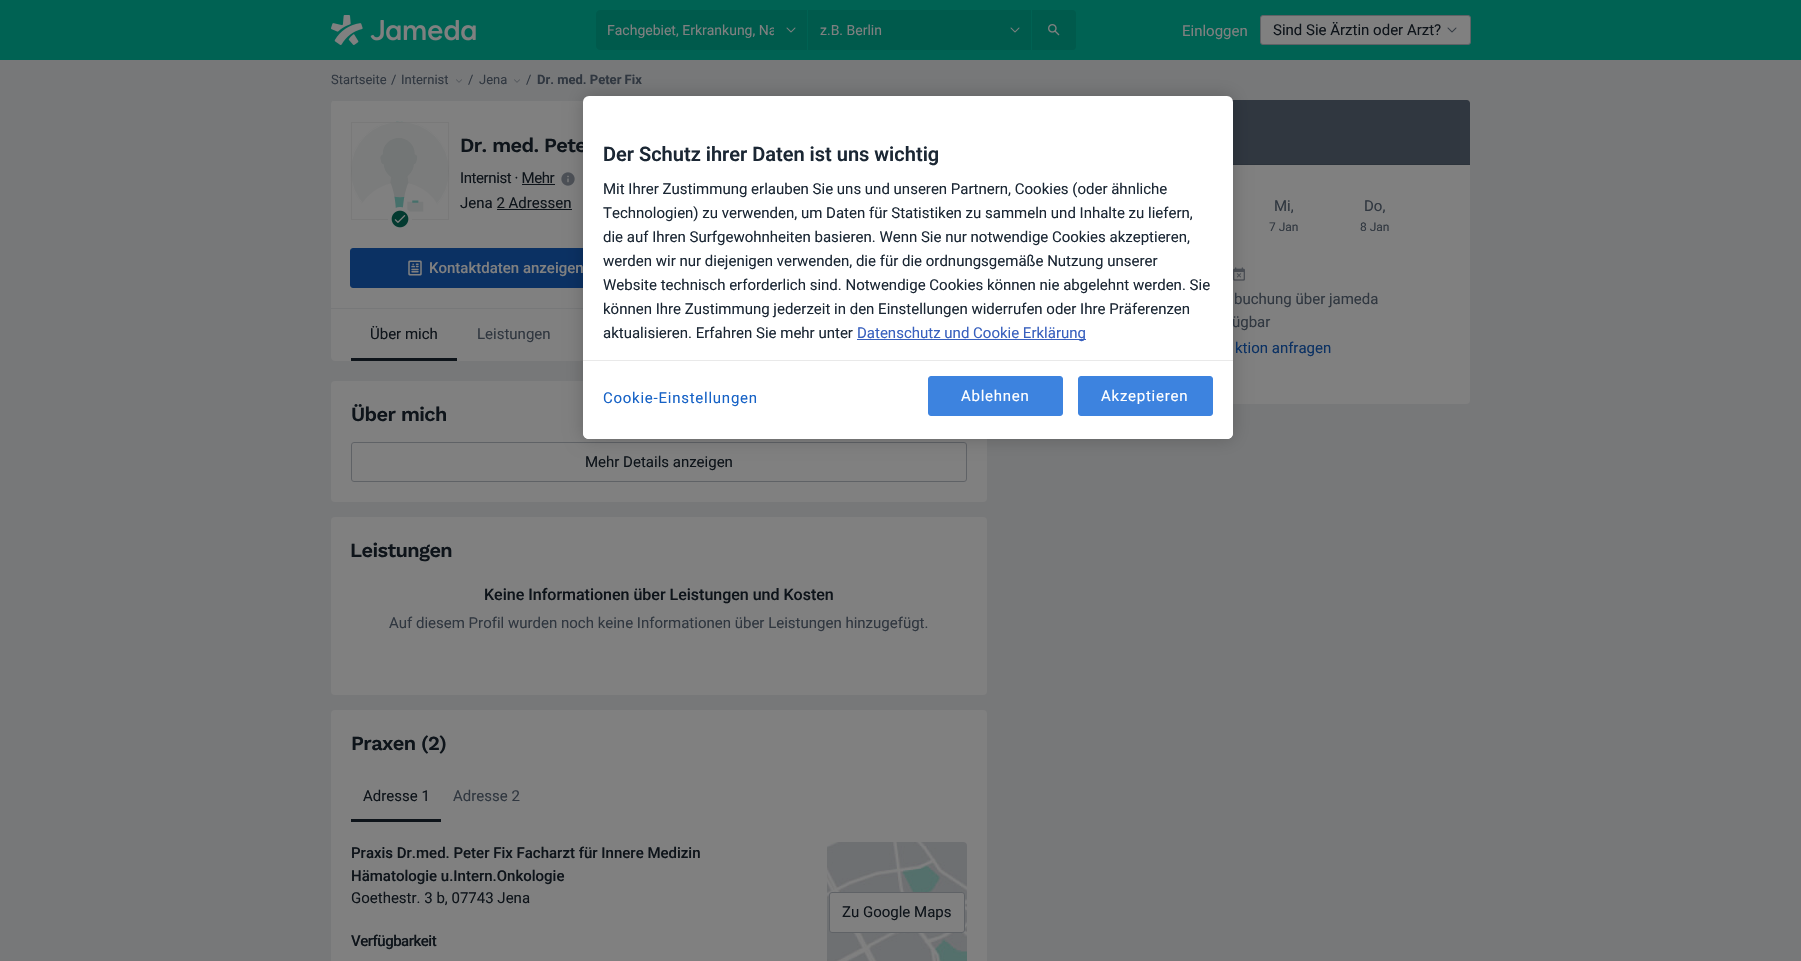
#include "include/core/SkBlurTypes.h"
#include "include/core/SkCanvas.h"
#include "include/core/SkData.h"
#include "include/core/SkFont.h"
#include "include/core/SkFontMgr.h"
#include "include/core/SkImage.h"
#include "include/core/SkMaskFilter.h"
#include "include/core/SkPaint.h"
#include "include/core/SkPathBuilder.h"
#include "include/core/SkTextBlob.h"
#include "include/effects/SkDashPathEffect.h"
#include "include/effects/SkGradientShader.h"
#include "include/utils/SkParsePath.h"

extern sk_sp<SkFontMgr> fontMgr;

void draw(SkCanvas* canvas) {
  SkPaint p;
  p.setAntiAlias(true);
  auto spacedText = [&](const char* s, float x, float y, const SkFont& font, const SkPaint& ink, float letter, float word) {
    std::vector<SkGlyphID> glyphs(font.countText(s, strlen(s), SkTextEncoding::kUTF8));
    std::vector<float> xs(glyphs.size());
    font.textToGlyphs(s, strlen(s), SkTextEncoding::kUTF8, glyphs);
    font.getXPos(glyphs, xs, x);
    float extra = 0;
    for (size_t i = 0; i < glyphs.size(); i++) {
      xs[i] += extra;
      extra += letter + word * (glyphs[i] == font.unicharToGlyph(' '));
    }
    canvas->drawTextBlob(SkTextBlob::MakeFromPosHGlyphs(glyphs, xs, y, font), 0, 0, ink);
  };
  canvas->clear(SkColorSetRGB(119, 120, 121));
  p.setColor(SkColorSetRGB(0, 98, 83));
  canvas->drawRect(SkRect::MakeLTRB(0, 0, 1801, 60), p);
  canvas->drawImageRect(SkImages::DeferredFromEncodedData(SkData::MakeFromFileName("images/1.png")), SkRect::MakeLTRB(331, 15, 476, 45), SkSamplingOptions());
  p.setColor(SkColorSetRGB(0, 90, 76));
  canvas->drawPath(SkPathBuilder().moveTo(600, 10).lineTo(807, 10).lineTo(807, 50).lineTo(600, 50).cubicTo(598, 50, 596, 48, 596, 46).lineTo(596, 14).cubicTo(596, 12, 598, 10, 600, 10).close().detach(), p);
  canvas->drawImageRect(SkImages::DeferredFromEncodedData(SkData::MakeFromFileName("images/2.png")), SkRect::MakeLTRB(786, 27, 796, 33), SkSamplingOptions());
  canvas->drawRect(SkRect::MakeLTRB(808, 10, 1031, 50), p);
  canvas->drawImageRect(SkImages::DeferredFromEncodedData(SkData::MakeFromFileName("images/2.png")), SkRect::MakeLTRB(1010, 27, 1020, 33), SkSamplingOptions());
  canvas->drawPath(SkPathBuilder().moveTo(1032, 10).lineTo(1073, 10).cubicTo(1074.5f, 10, 1076, 11.5f, 1076, 13).lineTo(1076, 47).cubicTo(1076, 48.5f, 1074.5f, 50, 1073, 50).lineTo(1032, 50).close().detach(), p);
  canvas->drawImageRect(SkImages::DeferredFromEncodedData(SkData::MakeFromFileName("images/3.png")), SkRect::MakeLTRB(1048, 24, 1060, 36), SkSamplingOptions());
  p.setColor(SkColorSetRGB(128, 128, 128));
  canvas->drawRoundRect(SkRect::MakeLTRB(1260.5f, 15.5f, 1470.5f, 44.5f), 2.5f, 2.5f, p);
  p.setStyle(SkPaint::kStroke_Style);
  p.setStrokeWidth(1);
  p.setColor(SkColorSetRGB(95, 98, 102));
  canvas->drawRoundRect(SkRect::MakeLTRB(1260.5f, 15.5f, 1470.5f, 44.5f), 2.5f, 2.5f, p);
  canvas->drawImageRect(SkImages::DeferredFromEncodedData(SkData::MakeFromFileName("images/4.png")), SkRect::MakeLTRB(1447, 27, 1457, 33), SkSamplingOptions());
  canvas->drawImageRect(SkImages::DeferredFromEncodedData(SkData::MakeFromFileName("images/5.png")), SkRect::MakeLTRB(456, 79, 462, 83), SkSamplingOptions());
  canvas->drawImageRect(SkImages::DeferredFromEncodedData(SkData::MakeFromFileName("images/5.png")), SkRect::MakeLTRB(514, 79, 520, 83), SkSamplingOptions());
  p.setStyle(SkPaint::kFill_Style);
  p.setColor(SkColorSetRGB(128, 128, 128));
  canvas->drawPath(SkPathBuilder().moveTo(335, 100).lineTo(983, 100).cubicTo(985, 100, 987, 102, 987, 104).lineTo(987, 309).lineTo(331, 309).lineTo(331, 104).cubicTo(331, 102, 333, 100, 335, 100).close().detach(), p);
  p.setColor(SkColorSetRGB(119, 120, 121));
  canvas->drawRect(SkRect::MakeLTRB(333, 100, 584, 101), p);
  canvas->drawRect(SkRect::MakeLTRB(331, 308, 583, 309), p);
  canvas->drawImageRect(SkImages::DeferredFromEncodedData(SkData::MakeFromFileName("images/6.png")), SkRect::MakeLTRB(350, 121, 450, 220), SkSamplingOptions());
  p.setStyle(SkPaint::kStroke_Style);
  p.setColor(SkColorSetRGB(128, 128, 128));
  canvas->drawCircle(400, 171, 49.5f, p);
  p.setColor(SkColorSetARGB(13, 0, 0, 0));
  canvas->drawRect(SkRect::MakeLTRB(351.5f, 122.5f, 448.5f, 219.5f), p);
  p.setStyle(SkPaint::kFill_Style);
  p.setColor(SkColorSetRGB(128, 128, 128));
  canvas->drawCircle(400, 219, 11, p);
  p.setStyle(SkPaint::kStroke_Style);
  p.setStrokeWidth(2);
  canvas->drawCircle(400, 219, 11, p);
  canvas->drawImageRect(SkImages::DeferredFromEncodedData(SkData::MakeFromFileName("images/7.png")), SkRect::MakeLTRB(391, 210, 409, 228), SkSamplingOptions());
  p.setStyle(SkPaint::kFill_Style);
  p.setColor(SkColorSetRGB(14, 20, 26));
  canvas->drawRect(SkRect::MakeLTRB(522, 184, 555, 185), p);
  canvas->drawImageRect(SkImages::DeferredFromEncodedData(SkData::MakeFromFileName("images/8.png")), SkRect::MakeLTRB(561, 172, 575, 186), SkSamplingOptions());
  canvas->drawRect(SkRect::MakeLTRB(497, 209, 572, 210), p);
  p.setColor(SkColorSetRGB(11, 49, 99));
  canvas->drawRoundRect(SkRect::MakeLTRB(350.5f, 248.5f, 638.5f, 287.5f), 2.5f, 2.5f, p);
  p.setStyle(SkPaint::kStroke_Style);
  p.setStrokeWidth(1);
  canvas->drawRoundRect(SkRect::MakeLTRB(350.5f, 248.5f, 638.5f, 287.5f), 2.5f, 2.5f, p);
  canvas->drawImageRect(SkImages::DeferredFromEncodedData(SkData::MakeFromFileName("images/9.png")), SkRect::MakeLTRB(408, 260, 422, 276), SkSamplingOptions());
  p.setStyle(SkPaint::kFill_Style);
  p.setColor(SkColorSetRGB(128, 128, 128));
  canvas->drawPath(SkPathBuilder().moveTo(331, 309).lineTo(987, 309).lineTo(987, 357).cubicTo(987, 359, 985, 361, 983, 361).lineTo(335, 361).cubicTo(333, 361, 331, 359, 331, 357).close().detach(), p);
  p.setColor(SkColorSetRGB(14, 20, 26));
  canvas->drawRect(SkRect::MakeLTRB(351, 358, 457, 361), p);
  p.setColor(SkColorSetRGB(128, 128, 128));
  canvas->drawRoundRect(SkRect::MakeLTRB(331, 381, 987, 502), 4, 4, p);
  p.setStyle(SkPaint::kStroke_Style);
  p.setColor(SkColorSetRGB(95, 98, 102));
  canvas->drawRoundRect(SkRect::MakeLTRB(351.5f, 442.5f, 966.5f, 481.5f), 2.5f, 2.5f, p);
  p.setStyle(SkPaint::kFill_Style);
  p.setColor(SkColorSetRGB(128, 128, 128));
  canvas->drawRoundRect(SkRect::MakeLTRB(331, 517, 987, 695), 4, 4, p);
  canvas->drawRoundRect(SkRect::MakeLTRB(331, 710, 987, 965), 4, 4, p);
  p.setColor(SkColorSetRGB(14, 20, 26));
  canvas->drawRect(SkRect::MakeLTRB(351, 819, 441, 822), p);
  canvas->drawImageRect(SkImages::DeferredFromEncodedData(SkData::MakeFromFileName("images/10.png")), SkRect::MakeLTRB(827, 842, 967, 961), SkSamplingOptions());
  p.setColor(SkColorSetRGB(128, 128, 128));
  canvas->drawRoundRect(SkRect::MakeLTRB(829.5f, 892.5f, 964.5f, 932.5f), 2.5f, 2.5f, p);
  p.setStyle(SkPaint::kStroke_Style);
  p.setColor(SkColorSetRGB(95, 98, 102));
  canvas->drawRoundRect(SkRect::MakeLTRB(829.5f, 892.5f, 964.5f, 932.5f), 2.5f, 2.5f, p);
  p.setStyle(SkPaint::kFill_Style);
  p.setColor(SkColorSetRGB(128, 128, 128));
  canvas->drawRoundRect(SkRect::MakeLTRB(1007, 100, 1470, 404), 4, 4, p);
  p.setColor(SkColorSetRGB(48, 55, 64));
  canvas->drawPath(SkPathBuilder().moveTo(1010, 100).lineTo(1467, 100).cubicTo(1468.5f, 100, 1470, 101.5f, 1470, 103).lineTo(1470, 165).lineTo(1007, 165).lineTo(1007, 103).cubicTo(1007, 101.5f, 1008.5f, 100, 1010, 100).close().detach(), p);
  p.setColor(SkColorSetRGB(44, 51, 59));
  canvas->drawRect(SkRect::MakeLTRB(1233, 164, 1470, 165), p);
  canvas->drawImageRect(SkImages::DeferredFromEncodedData(SkData::MakeFromFileName("images/11.png")), SkRect::MakeLTRB(1233, 267, 1245, 281), SkSamplingOptions());
  p.setColor(SkColorSetARGB(51, 0, 0, 0));
  p.setMaskFilter(SkMaskFilter::MakeBlur(kNormal_SkBlurStyle, 9));
  canvas->drawRoundRect(SkRect::MakeLTRB(583, 96, 1233, 439), 6, 6, p);
  p.setMaskFilter(nullptr);
  canvas->save();
  canvas->clipRect(SkRect::MakeLTRB(607, 22, 774, 38));
  SkFont font1(fontMgr->matchFamilyStyle("Roboto", SkFontStyle::Normal()), 14);
  font1.setSubpixel(true);
  p.setColor(SkColorSetRGB(128, 128, 128));
  canvas->drawString("Fachgebiet, Erkrankung, Na", 607, 35, font1, p);
  canvas->restore();
  canvas->drawString("z.B. Berlin", 820, 35, font1, p);
  SkFont font2(fontMgr->matchFamilyStyle("Roboto", SkFontStyle::Normal()), 15);
  font2.setSubpixel(true);
  canvas->drawString("Einloggen", 1182, 36, font2, p);
  p.setColor(SkColorSetRGB(14, 20, 26));
  canvas->drawString("Sind Sie Ärztin oder Arzt?", 1273, 35, font2, p);
  SkFont font3(fontMgr->matchFamilyStyle("Roboto", SkFontStyle::Normal()), 13);
  font3.setSubpixel(true);
  p.setColor(SkColorSetRGB(48, 55, 64));
  canvas->drawString("Startseite", 331, 84, font3, p);
  canvas->drawString("/", 391, 84, font3, p);
  canvas->drawString("Internist", 401, 84, font3, p);
  canvas->drawString("/", 468, 84, font3, p);
  canvas->drawString("Jena", 479, 84, font3, p);
  canvas->drawString("/", 526, 84, font3, p);
  SkFont font4(fontMgr->matchFamilyStyle("Roboto", SkFontStyle::Bold()), 13);
  font4.setSubpixel(true);
  canvas->drawString("Dr. med. Peter Fix", 537, 84, font4, p);
  SkFont font5(fontMgr->matchFamilyStyle("Work Sans", SkFontStyle(600, SkFontStyle::kNormal_Width, SkFontStyle::kUpright_Slant)), 20);
  font5.setSubpixel(true);
  p.setColor(SkColorSetRGB(14, 20, 26));
  spacedText("Dr. med. Pete", 460, 152, font5, p, -0.6f, 0);
  spacedText("Internist · Mehr", 460, 183, font2, p, -0.4f, 0);
  canvas->drawString("Jena 2 Adressen", 460, 208, font2, p);
  SkFont font6(fontMgr->matchFamilyStyle("Roboto", SkFontStyle(500, SkFontStyle::kNormal_Width, SkFontStyle::kUpright_Slant)), 15);
  font6.setSubpixel(true);
  p.setColor(SkColorSetRGB(128, 128, 128));
  canvas->drawString("Kontaktdaten anzeigen", 429, 273, font6, p);
  p.setColor(SkColorSetRGB(14, 20, 26));
  canvas->drawString("Über mich", 370, 339, font2, p);
  p.setColor(SkColorSetRGB(48, 55, 64));
  canvas->drawString("Leistungen", 477, 339, font2, p);
  p.setColor(SkColorSetRGB(14, 20, 26));
  spacedText("Über mich", 351, 421, font5, p, -0.6f, 0);
  canvas->drawString("Mehr Details anzeigen", 585, 467, font2, p);
  spacedText("Leistungen", 350, 557, font5, p, -0.6f, 0);
  SkFont font7(fontMgr->matchFamilyStyle("Roboto", SkFontStyle(500, SkFontStyle::kNormal_Width, SkFontStyle::kUpright_Slant)), 16);
  font7.setSubpixel(true);
  canvas->drawString("Keine Informationen über Leistungen und Kosten", 484, 600, font7, p);
  p.setColor(SkColorSetRGB(48, 55, 64));
  canvas->drawString("Auf diesem Profil wurden noch keine Informationen über Leistungen hinzugefügt.", 389, 628, font2, p);
  p.setColor(SkColorSetRGB(14, 20, 26));
  spacedText("Praxen (2)", 351, 750, font5, p, -0.6f, 0);
  canvas->drawString("Adresse 1", 363, 801, font2, p);
  p.setColor(SkColorSetRGB(48, 55, 64));
  canvas->drawString("Adresse 2", 453, 801, font2, p);
  p.setColor(SkColorSetRGB(14, 20, 26));
  canvas->drawString("Praxis Dr.med. Peter Fix Facharzt für Innere Medizin", 351, 858, font6, p);
  canvas->drawString("Hämatologie u.Intern.Onkologie", 351, 881, font6, p);
  canvas->drawString("Goethestr. 3 b, 07743 Jena", 351, 903, font2, p);
  spacedText("Verfügbarkeit", 351, 946, font6, p, -0.5f, 0);
  canvas->drawString("Zu Google Maps", 842, 917, font2, p);
  p.setColor(SkColorSetRGB(48, 55, 64));
  canvas->drawString("Mi,", 1274, 211, font2, p);
  SkFont font8(fontMgr->matchFamilyStyle("Roboto", SkFontStyle::Normal()), 12);
  font8.setSubpixel(true);
  canvas->drawString("7 Jan", 1269, 231, font8, p);
  canvas->drawString("Do,", 1364, 211, font2, p);
  canvas->drawString("8 Jan", 1360, 231, font8, p);
  canvas->drawString("buchung über jameda", 1234, 304, font2, p);
  canvas->drawString("ügbar", 1232, 327, font2, p);
  p.setColor(SkColorSetRGB(11, 49, 99));
  canvas->drawString("ktion anfragen", 1235, 353, font2, p);
  p.setColor(SK_ColorWHITE);
  canvas->drawRoundRect(SkRect::MakeLTRB(583, 96, 1233, 439), 6, 6, p);
  SkFont font9(fontMgr->matchFamilyStyle("Roboto", SkFontStyle(600, SkFontStyle::kNormal_Width, SkFontStyle::kUpright_Slant)), 20);
  font9.setSubpixel(true);
  p.setColor(SkColorSetRGB(27, 39, 52));
  canvas->drawString("Der Schutz ihrer Daten ist uns wichtig", 603, 161, font9, p);
  canvas->drawString("Mit Ihrer Zustimmung erlauben Sie uns und unseren Partnern, Cookies (oder ähnliche", 603, 194, font2, p);
  canvas->drawString("Technologien) zu verwenden, um Daten für Statistiken zu sammeln und Inhalte zu liefern,", 603, 218, font2, p);
  canvas->drawString("die auf Ihren Surfgewohnheiten basieren. Wenn Sie nur notwendige Cookies akzeptieren,", 603, 242, font2, p);
  canvas->drawString("werden wir nur diejenigen verwenden, die für die ordnungsgemäße Nutzung unserer", 603, 266, font2, p);
  canvas->drawString("Website technisch erforderlich sind. Notwendige Cookies können nie abgelehnt werden. Sie", 603, 290, font2, p);
  canvas->drawString("können Ihre Zustimmung jederzeit in den Einstellungen widerrufen oder Ihre Präferenzen", 603, 314, font2, p);
  canvas->drawString("aktualisieren. Erfahren Sie mehr unter", 603, 338, font2, p);
  p.setColor(SkColorSetRGB(56, 96, 190));
  canvas->drawRect(SkRect::MakeLTRB(857, 339, 1086, 340), p);
  canvas->drawString("Datenschutz und Cookie Erklärung", 857, 338, font2, p);
  p.setColor(SK_ColorWHITE);
  canvas->drawPath(SkPathBuilder().moveTo(583, 360).lineTo(1233, 360).lineTo(1233, 433).cubicTo(1233, 436.5f, 1230.5f, 439, 1227, 439).lineTo(589, 439).cubicTo(585.5f, 439, 583, 436.5f, 583, 433).close().detach(), p);
  p.setColor(SkColorSetRGB(233, 233, 233));
  canvas->drawRect(SkRect::MakeLTRB(583, 360, 1233, 361), p);
  p.setColor(SkColorSetRGB(22, 98, 198));
  spacedText("Cookie-Einstellungen", 603, 403, font2, p, 0.75f, 0);
  p.setColor(SkColorSetRGB(61, 131, 223));
  canvas->drawRoundRect(SkRect::MakeLTRB(928.5f, 376.5f, 1062.5f, 415.5f), 2.5f, 2.5f, p);
  p.setStyle(SkPaint::kStroke_Style);
  canvas->drawRoundRect(SkRect::MakeLTRB(928.5f, 376.5f, 1062.5f, 415.5f), 2.5f, 2.5f, p);
  p.setStyle(SkPaint::kFill_Style);
  p.setColor(SK_ColorWHITE);
  spacedText("Ablehnen", 961, 401, font2, p, 0.75f, 0);
  p.setColor(SkColorSetRGB(61, 131, 223));
  canvas->drawRoundRect(SkRect::MakeLTRB(1078.5f, 376.5f, 1212.5f, 415.5f), 2.5f, 2.5f, p);
  p.setStyle(SkPaint::kStroke_Style);
  canvas->drawRoundRect(SkRect::MakeLTRB(1078.5f, 376.5f, 1212.5f, 415.5f), 2.5f, 2.5f, p);
  p.setStyle(SkPaint::kFill_Style);
  p.setColor(SK_ColorWHITE);
  spacedText("Akzeptieren", 1101, 401, font2, p, 0.75f, 0);
}
